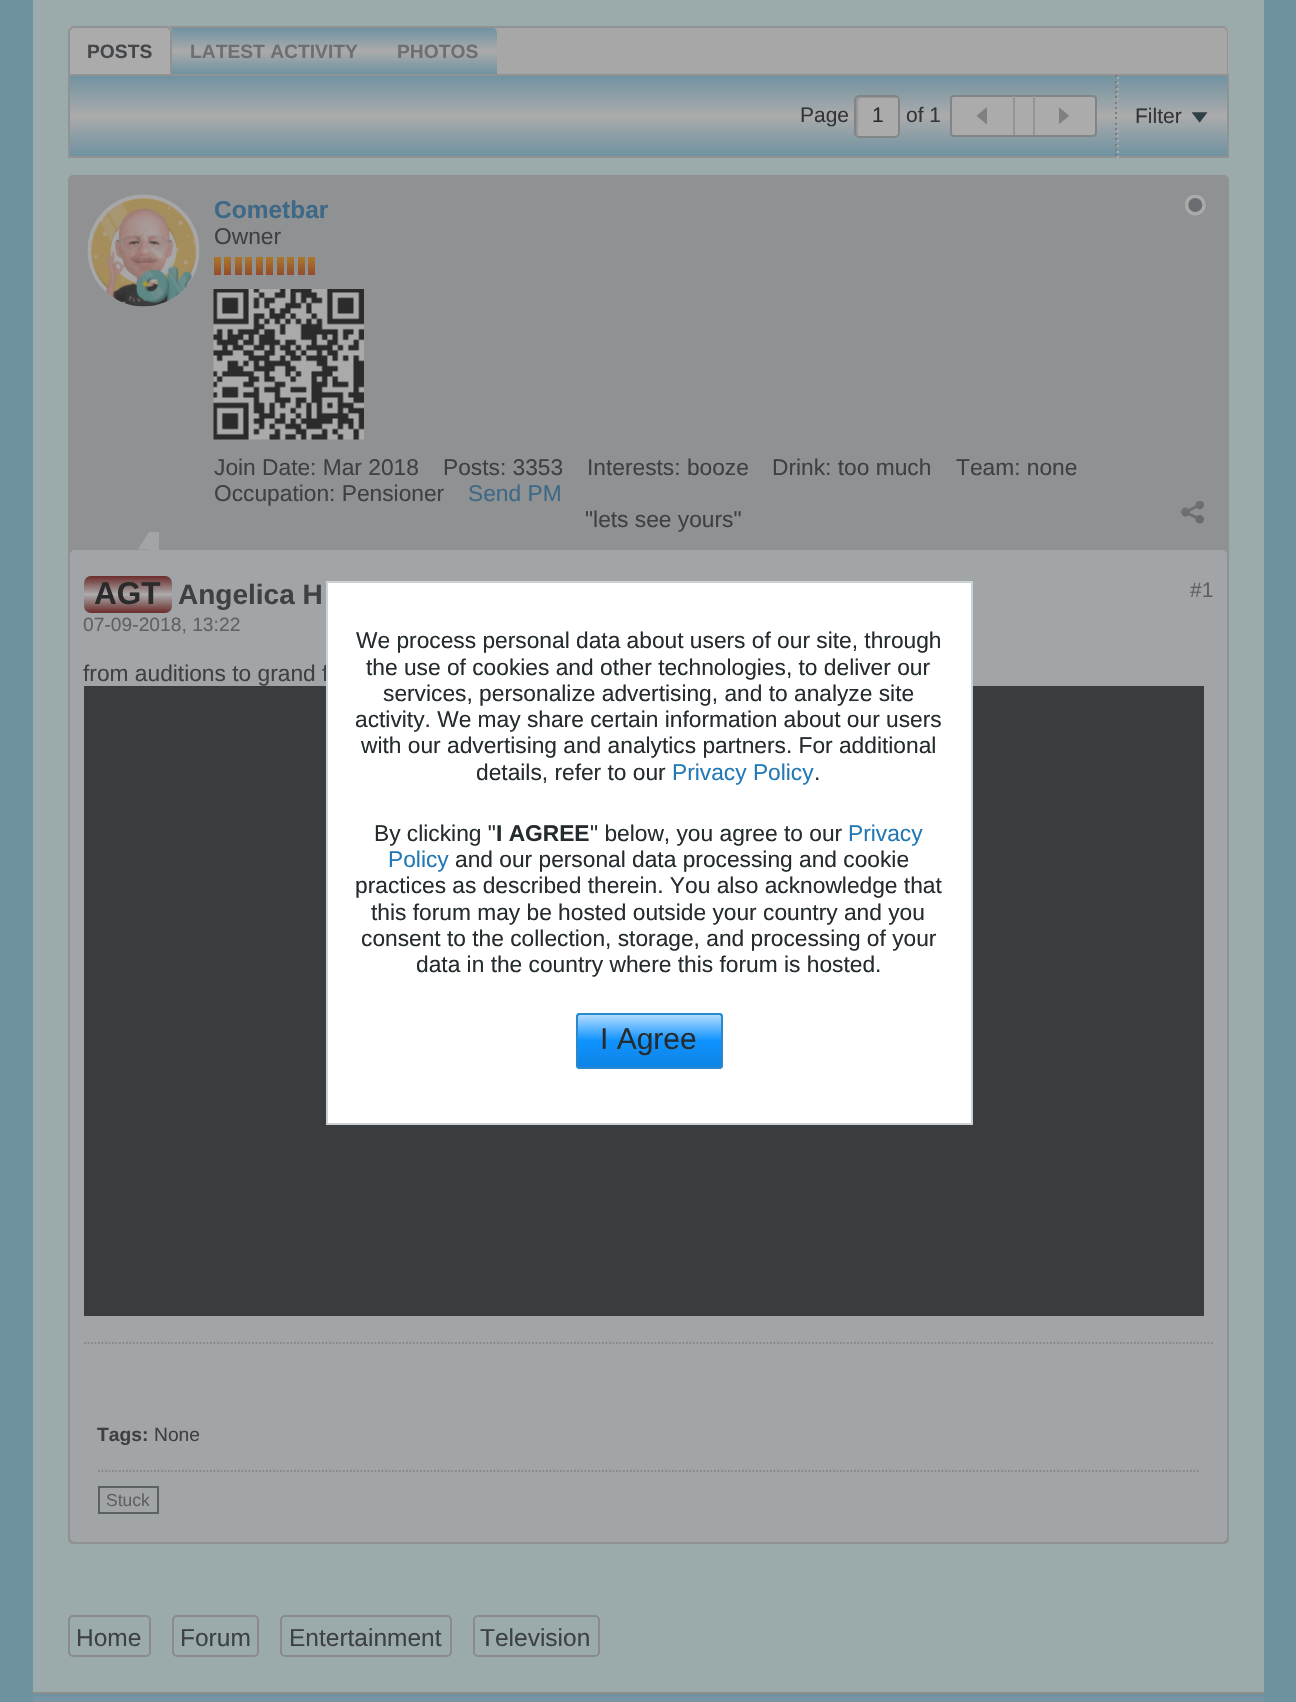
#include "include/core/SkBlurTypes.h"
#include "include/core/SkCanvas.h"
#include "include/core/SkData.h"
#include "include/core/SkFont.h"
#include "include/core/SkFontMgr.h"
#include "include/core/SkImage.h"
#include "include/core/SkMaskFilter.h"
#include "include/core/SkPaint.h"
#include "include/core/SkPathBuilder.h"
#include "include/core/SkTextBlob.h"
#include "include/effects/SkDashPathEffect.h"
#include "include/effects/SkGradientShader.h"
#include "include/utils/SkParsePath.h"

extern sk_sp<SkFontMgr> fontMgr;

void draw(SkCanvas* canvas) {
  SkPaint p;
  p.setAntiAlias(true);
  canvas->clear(SkColorSetRGB(111, 146, 161));
  p.setColor(SkColorSetRGB(155, 171, 171));
  canvas->drawRect(SkRect::MakeLTRB(33, 0, 1264, 1692), p);
  p.setColor(SkColorSetRGB(167, 167, 167));
  canvas->drawPath(SkPathBuilder().moveTo(73, 26).lineTo(1224, 26).cubicTo(1227, 26, 1229, 28, 1229, 31).lineTo(1229, 74).lineTo(68, 74).lineTo(68, 31).cubicTo(68, 28, 70, 26, 73, 26).close().detach(), p);
  p.setColor(SkColorSetRGB(144, 146, 148));
  canvas->drawPath(SkPathBuilder(SkPathFillType::kEvenOdd).moveTo(74, 26).lineTo(1223, 26).cubicTo(1226, 26, 1228, 29, 1228, 32).lineTo(1228, 74).lineTo(68, 74).lineTo(68, 32).cubicTo(68, 29, 71, 26, 74, 26).close().moveTo(74, 28).lineTo(1223, 28).cubicTo(1225, 28, 1227, 30, 1227, 32).lineTo(1227, 74).lineTo(70, 74).lineTo(70, 32).cubicTo(70, 30, 72, 28, 74, 28).close().detach(), p);
  {
    const SkColor colors[] = {SkColorSetRGB(111, 146, 161), SkColorSetRGB(171, 171, 171), SkColorSetRGB(111, 146, 161)};
    const float stops[] = {0, 0.5f, 1};
    const SkPoint ends[] = {{284, 28}, {284, 74}};
    p.setShader(SkGradientShader::MakeLinear(ends, colors, stops, 3, SkTileMode::kClamp));
    p.setAlpha(255);
  }
  canvas->drawPath(SkPathBuilder().moveTo(75, 28).lineTo(492, 28).cubicTo(495, 28, 497, 30, 497, 33).lineTo(497, 74).lineTo(75, 74).cubicTo(72, 74, 70, 72, 70, 69).lineTo(70, 33).cubicTo(70, 30, 72, 28, 75, 28).close().detach(), p);
  p.setShader(nullptr);
  p.setColor(SkColorSetRGB(171, 171, 171));
  canvas->drawPath(SkPathBuilder().moveTo(73, 26).lineTo(167, 26).cubicTo(170, 26, 172, 28, 172, 31).lineTo(172, 74).lineTo(68, 74).lineTo(68, 31).cubicTo(68, 28, 70, 26, 73, 26).close().detach(), p);
  p.setColor(SkColorSetRGB(144, 146, 148));
  canvas->drawPath(SkPathBuilder(SkPathFillType::kEvenOdd).moveTo(74, 26).lineTo(166, 26).cubicTo(169, 26, 172, 29, 172, 32).lineTo(172, 74).lineTo(68, 74).lineTo(68, 32).cubicTo(68, 29, 71, 26, 74, 26).close().moveTo(74, 28).lineTo(166, 28).cubicTo(168, 28, 170, 30, 170, 32).lineTo(170, 74).lineTo(70, 74).lineTo(70, 32).cubicTo(70, 30, 72, 28, 74, 28).close().detach(), p);
  {
    const SkColor colors[] = {SkColorSetRGB(111, 146, 161), SkColorSetRGB(171, 171, 171), SkColorSetRGB(111, 146, 161)};
    const float stops[] = {0, 0.5f, 1};
    const SkPoint ends[] = {{648, 75}, {648, 156}};
    p.setShader(SkGradientShader::MakeLinear(ends, colors, stops, 3, SkTileMode::kClamp));
    p.setAlpha(255);
  }
  canvas->drawRect(SkRect::MakeLTRB(70, 76, 1227, 156), p);
  p.setStyle(SkPaint::kStroke_Style);
  p.setStrokeWidth(2);
  p.setShader(nullptr);
  p.setColor(SkColorSetRGB(144, 146, 148));
  canvas->drawRect(SkRect::MakeLTRB(69, 75, 1228, 157), p);
  p.setStyle(SkPaint::kFill_Style);
  p.setColor(SkColorSetRGB(171, 171, 171));
  canvas->drawRoundRect(SkRect::MakeLTRB(854, 95, 900, 138), 5, 5, p);
  p.setColor(SkColorSetRGB(150, 150, 150));
  canvas->drawPath(SkPathBuilder().moveTo(861, 98).lineTo(896, 98).lineTo(898, 98).cubicTo(897, 97, 896, 96, 894, 96).lineTo(860, 96).cubicTo(858, 96, 856, 98, 856, 100).lineTo(856, 133).cubicTo(856, 135, 857, 136, 858, 137).lineTo(858, 108).cubicTo(858, 106, 857, 98, 861, 98).close().detach(), p);
  p.setStyle(SkPaint::kStroke_Style);
  p.setColor(SkColorSetRGB(130, 133, 134));
  canvas->drawRoundRect(SkRect::MakeLTRB(855, 96, 899, 137), 4, 4, p);
  p.setStyle(SkPaint::kFill_Style);
  p.setColor(SkColorSetRGB(171, 171, 171));
  canvas->drawRoundRect(SkRect::MakeLTRB(951, 96, 1096, 136), 3, 3, p);
  p.setStyle(SkPaint::kStroke_Style);
  p.setColor(SkColorSetRGB(130, 133, 134));
  canvas->drawRoundRect(SkRect::MakeLTRB(951, 96, 1096, 136), 3, 3, p);
  p.setStyle(SkPaint::kFill_Style);
  p.setColor(SkColorSetRGB(146, 148, 149));
  canvas->drawRect(SkRect::MakeLTRB(1013, 96, 1015, 135), p);
  canvas->drawImageRect(SkImages::DeferredFromEncodedData(SkData::MakeFromFileName("images/1.png")), SkRect::MakeLTRB(977, 107, 987, 125), SkSamplingOptions());
  canvas->drawRect(SkRect::MakeLTRB(1033, 96, 1035, 135), p);
  canvas->drawImageRect(SkImages::DeferredFromEncodedData(SkData::MakeFromFileName("images/2.png")), SkRect::MakeLTRB(1059, 107, 1069, 124), SkSamplingOptions());
  p.setColor(SkColorSetRGB(121, 125, 128));
  canvas->drawRect(SkRect::MakeLTRB(1115, 75, 1117, 77), p);
  canvas->drawRect(SkRect::MakeLTRB(1115, 81, 1117, 83), p);
  canvas->drawRect(SkRect::MakeLTRB(1115, 86, 1117, 88), p);
  canvas->drawRect(SkRect::MakeLTRB(1115, 91, 1117, 93), p);
  canvas->drawRect(SkRect::MakeLTRB(1115, 96, 1117, 98), p);
  canvas->drawRect(SkRect::MakeLTRB(1115, 102, 1117, 104), p);
  canvas->drawRect(SkRect::MakeLTRB(1115, 107, 1117, 109), p);
  canvas->drawRect(SkRect::MakeLTRB(1115, 112, 1117, 114), p);
  canvas->drawRect(SkRect::MakeLTRB(1115, 117, 1117, 119), p);
  canvas->drawRect(SkRect::MakeLTRB(1115, 123, 1117, 125), p);
  canvas->drawRect(SkRect::MakeLTRB(1115, 128, 1117, 130), p);
  canvas->drawRect(SkRect::MakeLTRB(1115, 133, 1117, 135), p);
  canvas->drawRect(SkRect::MakeLTRB(1115, 138, 1117, 140), p);
  canvas->drawRect(SkRect::MakeLTRB(1115, 144, 1117, 146), p);
  canvas->drawRect(SkRect::MakeLTRB(1115, 149, 1117, 151), p);
  canvas->drawRect(SkRect::MakeLTRB(1115, 154, 1117, 156), p);
  p.setColor(SkColorSetRGB(171, 171, 171));
  canvas->drawRect(SkRect::MakeLTRB(1117, 77, 1119, 79), p);
  canvas->drawRect(SkRect::MakeLTRB(1117, 82, 1119, 84), p);
  canvas->drawRect(SkRect::MakeLTRB(1117, 88, 1119, 90), p);
  canvas->drawRect(SkRect::MakeLTRB(1117, 93, 1119, 95), p);
  canvas->drawRect(SkRect::MakeLTRB(1117, 98, 1119, 100), p);
  canvas->drawRect(SkRect::MakeLTRB(1117, 103, 1119, 105), p);
  canvas->drawRect(SkRect::MakeLTRB(1117, 109, 1119, 111), p);
  canvas->drawRect(SkRect::MakeLTRB(1117, 119, 1119, 121), p);
  canvas->drawRect(SkRect::MakeLTRB(1117, 124, 1119, 126), p);
  canvas->drawRect(SkRect::MakeLTRB(1117, 130, 1119, 132), p);
  canvas->drawRect(SkRect::MakeLTRB(1117, 135, 1119, 137), p);
  canvas->drawRect(SkRect::MakeLTRB(1117, 140, 1119, 142), p);
  canvas->drawRect(SkRect::MakeLTRB(1117, 145, 1119, 147), p);
  canvas->drawRect(SkRect::MakeLTRB(1117, 151, 1119, 153), p);
  canvas->drawRect(SkRect::MakeLTRB(1117, 156, 1119, 158), p);
  canvas->drawImageRect(SkImages::DeferredFromEncodedData(SkData::MakeFromFileName("images/3.png")), SkRect::MakeLTRB(1192, 112, 1208, 123), SkSamplingOptions());
  p.setColor(SkColorSetRGB(143, 145, 146));
  canvas->drawRoundRect(SkRect::MakeLTRB(69, 176, 1228, 1543), 4, 4, p);
  p.setStyle(SkPaint::kStroke_Style);
  canvas->drawRoundRect(SkRect::MakeLTRB(69, 176, 1228, 1543), 4, 4, p);
  canvas->drawImageRect(SkImages::DeferredFromEncodedData(SkData::MakeFromFileName("images/4.png")), SkRect::MakeLTRB(87, 194, 200, 307), SkSamplingOptions());
  canvas->drawImageRect(SkImages::DeferredFromEncodedData(SkData::MakeFromFileName("images/5.png")), SkRect::MakeLTRB(1185, 195, 1206, 216), SkSamplingOptions());
  p.setStyle(SkPaint::kFill_Style);
  {
    const SkColor colors[] = {SkColorSetRGB(171, 120, 43), SkColorSetRGB(147, 76, 45)};
    const float stops[] = {0, 1};
    const SkPoint ends[] = {{217, 257}, {217, 275}};
    p.setShader(SkGradientShader::MakeLinear(ends, colors, stops, 2, SkTileMode::kClamp));
    p.setAlpha(255);
  }
  canvas->drawRect(SkRect::MakeLTRB(214, 257, 221, 275), p);
  {
    const SkColor colors[] = {SkColorSetRGB(171, 120, 43), SkColorSetRGB(147, 76, 45)};
    const float stops[] = {0, 1};
    const SkPoint ends[] = {{228, 257}, {228, 275}};
    p.setShader(SkGradientShader::MakeLinear(ends, colors, stops, 2, SkTileMode::kClamp));
    p.setAlpha(255);
  }
  canvas->drawRect(SkRect::MakeLTRB(224, 257, 231, 275), p);
  {
    const SkColor colors[] = {SkColorSetRGB(171, 120, 43), SkColorSetRGB(147, 76, 45)};
    const float stops[] = {0, 1};
    const SkPoint ends[] = {{238, 257}, {238, 275}};
    p.setShader(SkGradientShader::MakeLinear(ends, colors, stops, 2, SkTileMode::kClamp));
    p.setAlpha(255);
  }
  canvas->drawRect(SkRect::MakeLTRB(235, 257, 242, 275), p);
  {
    const SkColor colors[] = {SkColorSetRGB(171, 120, 43), SkColorSetRGB(147, 76, 45)};
    const float stops[] = {0, 1};
    const SkPoint ends[] = {{249, 257}, {249, 275}};
    p.setShader(SkGradientShader::MakeLinear(ends, colors, stops, 2, SkTileMode::kClamp));
    p.setAlpha(255);
  }
  canvas->drawRect(SkRect::MakeLTRB(245, 257, 252, 275), p);
  {
    const SkColor colors[] = {SkColorSetRGB(171, 120, 43), SkColorSetRGB(147, 76, 45)};
    const float stops[] = {0, 1};
    const SkPoint ends[] = {{259, 257}, {259, 275}};
    p.setShader(SkGradientShader::MakeLinear(ends, colors, stops, 2, SkTileMode::kClamp));
    p.setAlpha(255);
  }
  canvas->drawRect(SkRect::MakeLTRB(256, 257, 263, 275), p);
  {
    const SkColor colors[] = {SkColorSetRGB(171, 120, 43), SkColorSetRGB(147, 76, 45)};
    const float stops[] = {0, 1};
    const SkPoint ends[] = {{270, 257}, {270, 275}};
    p.setShader(SkGradientShader::MakeLinear(ends, colors, stops, 2, SkTileMode::kClamp));
    p.setAlpha(255);
  }
  canvas->drawRect(SkRect::MakeLTRB(266, 257, 273, 275), p);
  {
    const SkColor colors[] = {SkColorSetRGB(171, 120, 43), SkColorSetRGB(147, 76, 45)};
    const float stops[] = {0, 1};
    const SkPoint ends[] = {{280, 257}, {280, 275}};
    p.setShader(SkGradientShader::MakeLinear(ends, colors, stops, 2, SkTileMode::kClamp));
    p.setAlpha(255);
  }
  canvas->drawRect(SkRect::MakeLTRB(277, 257, 284, 275), p);
  {
    const SkColor colors[] = {SkColorSetRGB(171, 120, 43), SkColorSetRGB(147, 76, 45)};
    const float stops[] = {0, 1};
    const SkPoint ends[] = {{291, 257}, {291, 275}};
    p.setShader(SkGradientShader::MakeLinear(ends, colors, stops, 2, SkTileMode::kClamp));
    p.setAlpha(255);
  }
  canvas->drawRect(SkRect::MakeLTRB(287, 257, 294, 275), p);
  {
    const SkColor colors[] = {SkColorSetRGB(171, 120, 43), SkColorSetRGB(147, 76, 45)};
    const float stops[] = {0, 1};
    const SkPoint ends[] = {{301, 257}, {301, 275}};
    p.setShader(SkGradientShader::MakeLinear(ends, colors, stops, 2, SkTileMode::kClamp));
    p.setAlpha(255);
  }
  canvas->drawRect(SkRect::MakeLTRB(298, 257, 305, 275), p);
  {
    const SkColor colors[] = {SkColorSetRGB(171, 120, 43), SkColorSetRGB(147, 76, 45)};
    const float stops[] = {0, 1};
    const SkPoint ends[] = {{312, 257}, {312, 275}};
    p.setShader(SkGradientShader::MakeLinear(ends, colors, stops, 2, SkTileMode::kClamp));
    p.setAlpha(255);
  }
  canvas->drawRect(SkRect::MakeLTRB(308, 257, 315, 275), p);
  canvas->drawImageRect(SkImages::DeferredFromEncodedData(SkData::MakeFromFileName("images/6.png")), SkRect::MakeLTRB(213, 289, 364, 440), SkSamplingOptions());
  canvas->drawImageRect(SkImages::DeferredFromEncodedData(SkData::MakeFromFileName("images/7.png")), SkRect::MakeLTRB(1181, 501, 1204, 524), SkSamplingOptions());
  p.setShader(nullptr);
  p.setColor(SkColorSetRGB(161, 165, 168));
  canvas->drawRoundRect(SkRect::MakeLTRB(70, 550, 1227, 1542), 5, 5, p);
  canvas->drawRect(SkRect::MakeLTRB(149, 532, 159, 550), p);
  canvas->drawPath(SkPathBuilder().moveTo(159, 549.5f).lineTo(138, 549.5f).lineTo(149, 532).close().detach(), p);
  {
    const SkColor colors[] = {SkColorSetRGB(107, 43, 43), SkColorSetRGB(171, 171, 171), SkColorSetRGB(107, 43, 43)};
    const float stops[] = {0, 0.5f, 1};
    const SkPoint ends[] = {{128, 576}, {128, 613}};
    p.setShader(SkGradientShader::MakeLinear(ends, colors, stops, 3, SkTileMode::kClamp));
    p.setAlpha(255);
  }
  canvas->drawRoundRect(SkRect::MakeLTRB(84, 576, 172, 613), 7, 7, p);
  p.setShader(nullptr);
  p.setColor(SkColorSetRGB(58, 61, 63));
  canvas->drawRect(SkRect::MakeLTRB(84, 686, 1204, 1316), p);
  p.setStyle(SkPaint::kStroke_Style);
  p.setStrokeWidth(1.8f);
  p.setColor(SkColorSetRGB(135, 137, 138));
  p.setPathEffect(SkDashPathEffect::Make({{1.75f, 1.75f}}, 0));
  canvas->drawPath(SkPathBuilder().moveTo(84, 1343).lineTo(1213, 1343).detach(), p);
  p.setPathEffect(nullptr);
  p.setPathEffect(SkDashPathEffect::Make({{1.75f, 1.75f}}, 0));
  canvas->drawPath(SkPathBuilder().moveTo(98, 1471).lineTo(1199, 1471).detach(), p);
  p.setPathEffect(nullptr);
  p.setStrokeWidth(2);
  p.setColor(SkColorSetRGB(91, 96, 99));
  canvas->drawRect(SkRect::MakeLTRB(99, 1487, 158, 1513), p);
  p.setColor(SkColorSetRGB(139, 139, 139));
  canvas->drawRoundRect(SkRect::MakeLTRB(69, 1616, 150, 1656), 4, 4, p);
  canvas->drawRoundRect(SkRect::MakeLTRB(173, 1616, 258, 1656), 4, 4, p);
  canvas->drawRoundRect(SkRect::MakeLTRB(281, 1616, 451, 1656), 4, 4, p);
  canvas->drawRoundRect(SkRect::MakeLTRB(474, 1616, 599, 1656), 4, 4, p);
  p.setStyle(SkPaint::kFill_Style);
  {
    const SkColor colors[] = {SkColorSetRGB(111, 146, 161), SkColorSetRGB(171, 171, 171), SkColorSetRGB(111, 146, 161)};
    const float stops[] = {0, 0.5f, 1};
    const SkPoint ends[] = {{648, 1694}, {648, 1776}};
    p.setShader(SkGradientShader::MakeLinear(ends, colors, stops, 3, SkTileMode::kClamp));
    p.setAlpha(255);
  }
  canvas->drawRect(SkRect::MakeLTRB(33, 1696, 1264, 1702), p);
  p.setShader(nullptr);
  p.setColor(SkColorSetRGB(140, 140, 140));
  canvas->drawRect(SkRect::MakeLTRB(33, 1692, 1264, 1694), p);
  SkFont font1(fontMgr->matchFamilyStyle("Liberation Sans", SkFontStyle::Bold()), 19.25f);
  font1.setSubpixel(true);
  p.setColor(SkColorSetRGB(69, 72, 74));
  canvas->drawString("POSTS", 87, 58, font1, p);
  p.setColor(SkColorSetRGB(109, 111, 112));
  canvas->drawString("LATEST ACTIVITY", 190, 58, font1, p);
  canvas->drawString("PHOTOS", 397, 58, font1, p);
  SkFont font2(fontMgr->matchFamilyStyle("Liberation Sans", SkFontStyle::Normal()), 21);
  font2.setSubpixel(true);
  p.setColor(SkColorSetRGB(48, 54, 57));
  canvas->drawString("Page", 800, 122, font2, p);
  p.setColor(SkColorSetRGB(43, 43, 43));
  canvas->drawString("1", 872, 122, font2, p);
  p.setColor(SkColorSetRGB(48, 54, 57));
  canvas->drawString("of 1", 906, 122, font2, p);
  canvas->drawString("Filter", 1135, 123, font2, p);
  SkFont font3(fontMgr->matchFamilyStyle("Liberation Sans", SkFontStyle::Bold()), 24.5f);
  font3.setSubpixel(true);
  p.setColor(SkColorSetRGB(61, 104, 134));
  canvas->drawString("Cometbar", 214, 218, font3, p);
  SkFont font4(fontMgr->matchFamilyStyle("Liberation Sans", SkFontStyle::Normal()), 22.75f);
  font4.setSubpixel(true);
  p.setColor(SkColorSetRGB(62, 65, 67));
  canvas->drawString("Owner", 214, 244, font4, p);
  canvas->drawString("Join Date: Mar 2018", 214, 475, font4, p);
  canvas->drawString("Posts: 3353", 443, 475, font4, p);
  canvas->drawString("Interests: booze", 587, 475, font4, p);
  canvas->drawString("Drink: too much", 772, 475, font4, p);
  canvas->drawString("Team: none", 956, 475, font4, p);
  canvas->drawString("Occupation: Pensioner", 214, 501, font4, p);
  p.setColor(SkColorSetRGB(61, 104, 134));
  canvas->drawString("Send PM", 468, 501, font4, p);
  p.setColor(SkColorSetRGB(62, 65, 67));
  canvas->drawString("\"lets see yours\"", 585, 527, font4, p);
  SkFont font5(fontMgr->matchFamilyStyle("Liberation Sans", SkFontStyle::Bold()), 31.5f);
  font5.setSubpixel(true);
  p.setColor(SkColorSetRGB(43, 43, 43));
  canvas->drawString("AGT", 94, 604, font5, p);
  SkFont font6(fontMgr->matchFamilyStyle("Liberation Sans", SkFontStyle::Bold()), 28);
  font6.setSubpixel(true);
  p.setColor(SkColorSetRGB(62, 65, 67));
  canvas->drawString("Angelica H", 178, 604, font6, p);
  SkFont font7(fontMgr->matchFamilyStyle("Liberation Sans", SkFontStyle::Normal()), 19.25f);
  font7.setSubpixel(true);
  p.setColor(SkColorSetRGB(96, 96, 96));
  canvas->drawString("07-09-2018, 13:22", 83, 631, font7, p);
  canvas->drawString("#1", 1190, 597, font2, p);
  p.setColor(SkColorSetRGB(62, 65, 67));
  canvas->drawString("from auditions to grand f", 83, 681, font4, p);
  canvas->drawString("Tags:", 97, 1441, font1, p);
  canvas->drawString("None", 154, 1441, font7, p);
  SkFont font8(fontMgr->matchFamilyStyle("Liberation Sans", SkFontStyle::Normal()), 17.5f);
  font8.setSubpixel(true);
  p.setColor(SkColorSetRGB(96, 96, 96));
  canvas->drawString("Stuck", 106, 1506, font8, p);
  SkFont font9(fontMgr->matchFamilyStyle("Liberation Sans", SkFontStyle::Normal()), 24.5f);
  font9.setSubpixel(true);
  p.setColor(SkColorSetRGB(62, 65, 67));
  canvas->drawString("Home", 76, 1646, font9, p);
  canvas->drawString("Forum", 180, 1646, font9, p);
  canvas->drawString("Entertainment", 289, 1646, font9, p);
  canvas->drawString("Television", 480, 1646, font9, p);
  p.setColor(SK_ColorWHITE);
  canvas->drawRect(SkRect::MakeLTRB(327, 582, 972, 1124), p);
  p.setStyle(SkPaint::kStroke_Style);
  p.setColor(SkColorSetRGB(204, 209, 213));
  canvas->drawRect(SkRect::MakeLTRB(327, 582, 972, 1124), p);
  p.setStyle(SkPaint::kFill_Style);
  p.setColor(SkColorSetRGB(37, 44, 47));
  canvas->drawString("We process personal data about users of our site, through", 356, 648, font4, p);
  canvas->drawString("the use of cookies and other technologies, to deliver our", 366, 675, font4, p);
  canvas->drawString("services, personalize advertising, and to analyze site", 383, 701, font4, p);
  canvas->drawString("activity. We may share certain information about our users", 355, 727, font4, p);
  canvas->drawString("with our advertising and analytics partners. For additional", 361, 753, font4, p);
  canvas->drawString("details, refer to our", 476, 780, font4, p);
  p.setColor(SkColorSetRGB(35, 121, 181));
  canvas->drawString("Privacy Policy", 672, 780, font4, p);
  p.setColor(SkColorSetRGB(37, 44, 47));
  canvas->drawString(".", 814, 780, font4, p);
  canvas->drawString("By clicking \"", 374, 841, font4, p);
  SkFont font10(fontMgr->matchFamilyStyle("Liberation Sans", SkFontStyle::Bold()), 22.75f);
  font10.setSubpixel(true);
  canvas->drawString("I AGREE", 496, 841, font10, p);
  canvas->drawString("\" below, you agree to our", 590, 841, font4, p);
  p.setColor(SkColorSetRGB(35, 121, 181));
  canvas->drawString("Privacy", 848, 841, font4, p);
  canvas->drawString("Policy", 388, 867, font4, p);
  p.setColor(SkColorSetRGB(37, 44, 47));
  canvas->drawString("and our personal data processing and cookie", 455, 867, font4, p);
  canvas->drawString("practices as described therein. You also acknowledge that", 355, 893, font4, p);
  canvas->drawString("this forum may be hosted outside your country and you", 371, 920, font4, p);
  canvas->drawString("consent to the collection, storage, and processing of your", 361, 946, font4, p);
  canvas->drawString("data in the country where this forum is hosted.", 416, 972, font4, p);
  p.setColor(SkColorSetRGB(15, 147, 255));
  canvas->drawRoundRect(SkRect::MakeLTRB(576, 1013, 723, 1069), 4, 4, p);
  canvas->save();
  canvas->clipPath(SkPathBuilder().moveTo(580, 1013).lineTo(719, 1013).cubicTo(721, 1013, 723, 1015, 723, 1017).lineTo(723, 1065).cubicTo(723, 1067, 721, 1069, 719, 1069).lineTo(580, 1069).cubicTo(578, 1069, 576, 1067, 576, 1065).lineTo(576, 1017).cubicTo(576, 1015, 578, 1013, 580, 1013).close().detach(), true);
  {
    const SkColor colors[] = {SkColorSetARGB(26, 0, 0, 0), SkColorSetARGB(0, 0, 0, 0), SkColorSetARGB(0, 255, 255, 255), SkColorSetARGB(179, 255, 255, 255)};
    const float stops[] = {0, 0.5f, 0.5f, 1};
    const SkPoint ends[] = {{649, 1067}, {649, 1014}};
    p.setShader(SkGradientShader::MakeLinear(ends, colors, stops, 4, SkTileMode::kClamp));
    p.setAlpha(255);
  }
  canvas->drawRect(SkRect::MakeLTRB(576, 1015, 723, 1068), p);
  canvas->restore();
  p.setStyle(SkPaint::kStroke_Style);
  p.setShader(nullptr);
  p.setColor(SkColorSetRGB(41, 137, 204));
  canvas->drawRoundRect(SkRect::MakeLTRB(577, 1014, 722, 1068), 3, 3, p);
  SkFont font11(fontMgr->matchFamilyStyle("Liberation Sans", SkFontStyle::Normal()), 30);
  font11.setSubpixel(true);
  p.setStyle(SkPaint::kFill_Style);
  p.setColor(SkColorSetRGB(37, 44, 47));
  canvas->drawString("I Agree", 600, 1049, font11, p);
}
